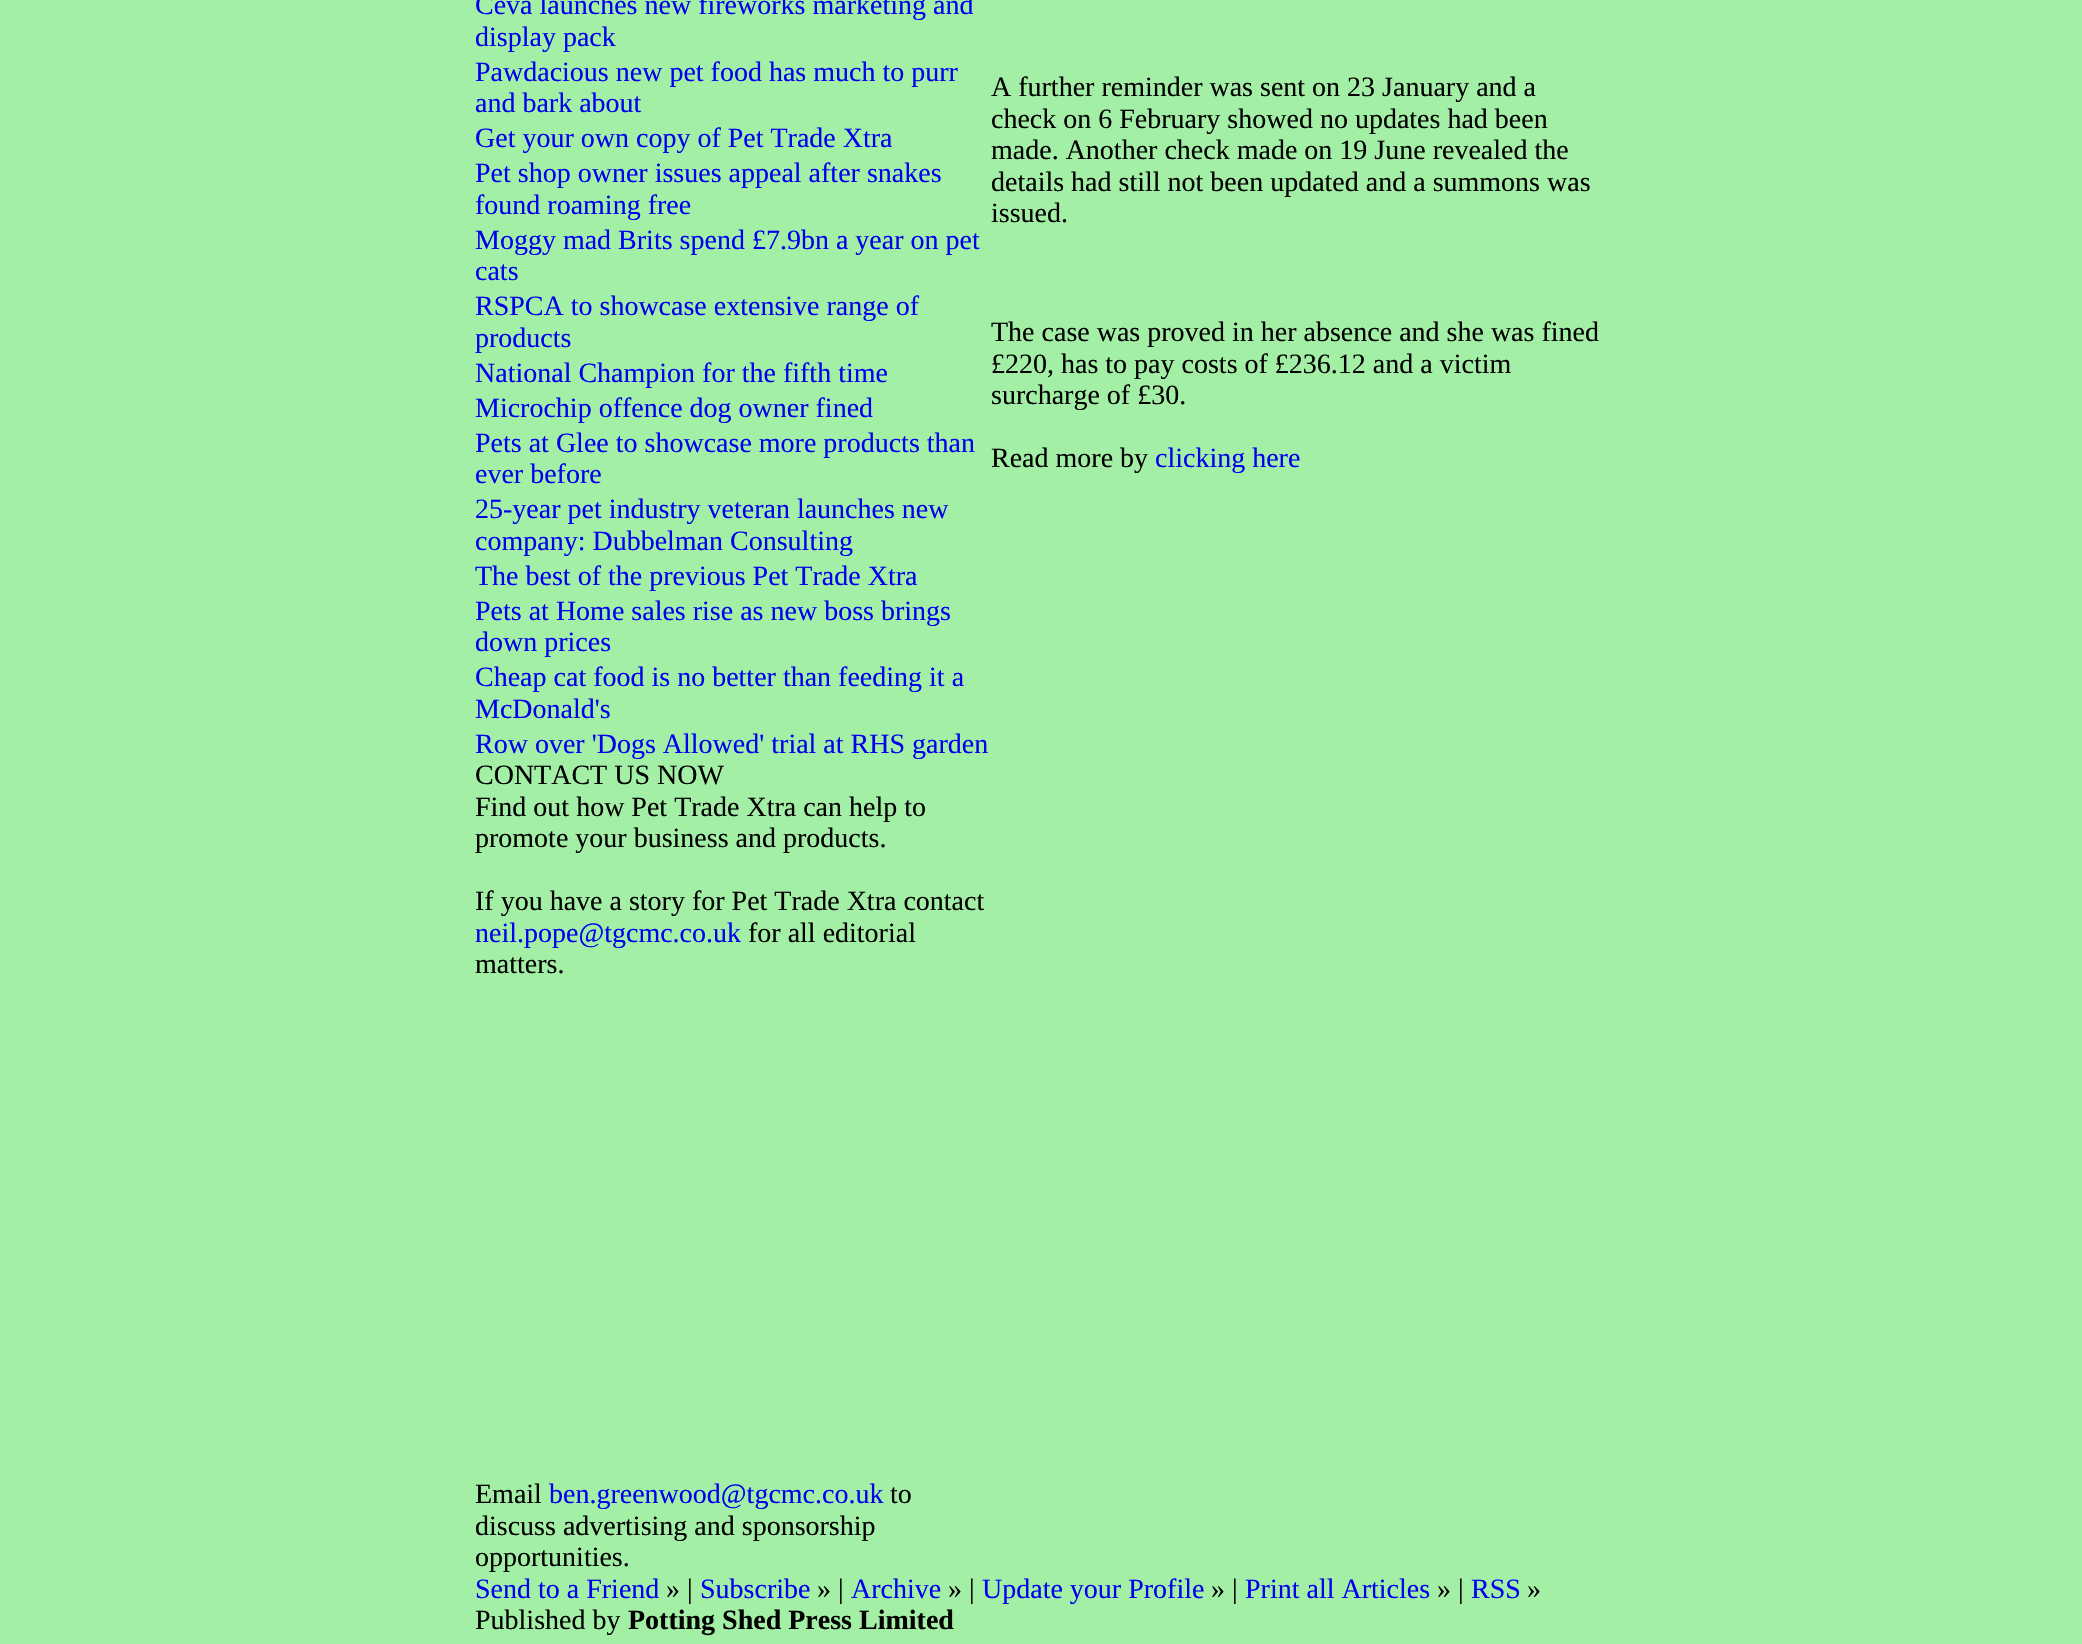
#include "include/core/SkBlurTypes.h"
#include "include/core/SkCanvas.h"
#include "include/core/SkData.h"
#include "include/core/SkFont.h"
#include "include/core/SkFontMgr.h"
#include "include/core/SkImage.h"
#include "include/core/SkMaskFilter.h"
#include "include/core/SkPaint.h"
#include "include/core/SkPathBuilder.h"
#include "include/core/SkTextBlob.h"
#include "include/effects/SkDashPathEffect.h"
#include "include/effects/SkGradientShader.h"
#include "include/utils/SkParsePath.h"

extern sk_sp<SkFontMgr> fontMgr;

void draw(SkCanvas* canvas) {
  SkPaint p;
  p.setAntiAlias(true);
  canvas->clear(SkColorSetRGB(163, 239, 165));
  SkFont font1(fontMgr->matchFamilyStyle("Liberation Serif", SkFontStyle::Normal()), 28);
  font1.setSubpixel(true);
  p.setColor(SkColorSetRGB(0, 0, 238));
  canvas->drawString("Ceva launches new fireworks marketing and", 475, 14, font1, p);
  canvas->drawString("display pack", 475, 46, font1, p);
  canvas->drawString("Pawdacious new pet food has much to purr", 475, 81, font1, p);
  canvas->drawString("and bark about", 475, 112, font1, p);
  canvas->drawString("Get your own copy of Pet Trade Xtra", 475, 147, font1, p);
  canvas->drawString("Pet shop owner issues appeal after snakes", 475, 182, font1, p);
  canvas->drawString("found roaming free", 475, 214, font1, p);
  canvas->drawString("Moggy mad Brits spend £7.9bn a year on pet", 475, 249, font1, p);
  canvas->drawString("cats", 475, 280, font1, p);
  canvas->drawString("RSPCA to showcase extensive range of", 475, 315, font1, p);
  canvas->drawString("products", 475, 347, font1, p);
  canvas->drawString("National Champion for the fifth time", 475, 382, font1, p);
  canvas->drawString("Microchip offence dog owner fined", 475, 417, font1, p);
  canvas->drawString("Pets at Glee to showcase more products than", 475, 452, font1, p);
  canvas->drawString("ever before", 475, 483, font1, p);
  canvas->drawString("25-year pet industry veteran launches new", 475, 518, font1, p);
  canvas->drawString("company: Dubbelman Consulting", 475, 550, font1, p);
  canvas->drawString("The best of the previous Pet Trade Xtra", 475, 585, font1, p);
  canvas->drawString("Pets at Home sales rise as new boss brings", 475, 620, font1, p);
  canvas->drawString("down prices", 475, 651, font1, p);
  canvas->drawString("Cheap cat food is no better than feeding it a", 475, 686, font1, p);
  canvas->drawString("McDonald's", 475, 718, font1, p);
  canvas->drawString("Row over 'Dogs Allowed' trial at RHS garden", 475, 753, font1, p);
  p.setColor(SK_ColorBLACK);
  canvas->drawString("CONTACT US NOW", 475, 784, font1, p);
  canvas->drawString("Find out how Pet Trade Xtra can help to", 475, 816, font1, p);
  canvas->drawString("promote your business and products.", 475, 847, font1, p);
  canvas->drawString("If you have a story for Pet Trade Xtra contact", 475, 910, font1, p);
  p.setColor(SkColorSetRGB(0, 0, 238));
  canvas->drawString("neil.pope@tgcmc.co.uk", 475, 942, font1, p);
  p.setColor(SK_ColorBLACK);
  canvas->drawString("for all editorial", 748, 942, font1, p);
  canvas->drawString("matters.", 475, 973, font1, p);
  canvas->drawString("Email", 475, 1503, font1, p);
  p.setColor(SkColorSetRGB(0, 0, 238));
  canvas->drawString("ben.greenwood@tgcmc.co.uk", 549, 1503, font1, p);
  p.setColor(SK_ColorBLACK);
  canvas->drawString("to", 890, 1503, font1, p);
  canvas->drawString("discuss advertising and sponsorship", 475, 1535, font1, p);
  canvas->drawString("opportunities.", 475, 1566, font1, p);
  canvas->drawString("A further reminder was sent on 23 January and a", 991, 96, font1, p);
  canvas->drawString("check on 6 February showed no updates had been", 991, 128, font1, p);
  canvas->drawString("made. Another check made on 19 June revealed the", 991, 159, font1, p);
  canvas->drawString("details had still not been updated and a summons was", 991, 191, font1, p);
  canvas->drawString("issued.", 991, 222, font1, p);
  canvas->drawString("The case was proved in her absence and she was fined", 991, 341, font1, p);
  canvas->drawString("£220, has to pay costs of £236.12 and a victim", 991, 373, font1, p);
  canvas->drawString("surcharge of £30.", 991, 404, font1, p);
  canvas->drawString("Read more by", 991, 467, font1, p);
  p.setColor(SkColorSetRGB(0, 0, 238));
  canvas->drawString("clicking here", 1155, 467, font1, p);
  canvas->drawString("Send to a Friend", 475, 1598, font1, p);
  p.setColor(SK_ColorBLACK);
  canvas->drawString("» |", 666, 1598, font1, p);
  p.setColor(SkColorSetRGB(0, 0, 238));
  canvas->drawString("Subscribe", 700, 1598, font1, p);
  p.setColor(SK_ColorBLACK);
  canvas->drawString("» |", 817, 1598, font1, p);
  p.setColor(SkColorSetRGB(0, 0, 238));
  canvas->drawString("Archive", 851, 1598, font1, p);
  p.setColor(SK_ColorBLACK);
  canvas->drawString("» |", 948, 1598, font1, p);
  p.setColor(SkColorSetRGB(0, 0, 238));
  canvas->drawString("Update your Profile", 982, 1598, font1, p);
  p.setColor(SK_ColorBLACK);
  canvas->drawString("» |", 1211, 1598, font1, p);
  p.setColor(SkColorSetRGB(0, 0, 238));
  canvas->drawString("Print all Articles", 1245, 1598, font1, p);
  p.setColor(SK_ColorBLACK);
  canvas->drawString("» |", 1437, 1598, font1, p);
  p.setColor(SkColorSetRGB(0, 0, 238));
  canvas->drawString("RSS", 1471, 1598, font1, p);
  p.setColor(SK_ColorBLACK);
  canvas->drawString("»", 1527, 1598, font1, p);
  canvas->drawString("Published by", 475, 1629, font1, p);
  SkFont font2(fontMgr->matchFamilyStyle("Liberation Serif", SkFontStyle::Bold()), 28);
  font2.setSubpixel(true);
  canvas->drawString("Potting Shed Press Limited", 628, 1629, font2, p);
}
